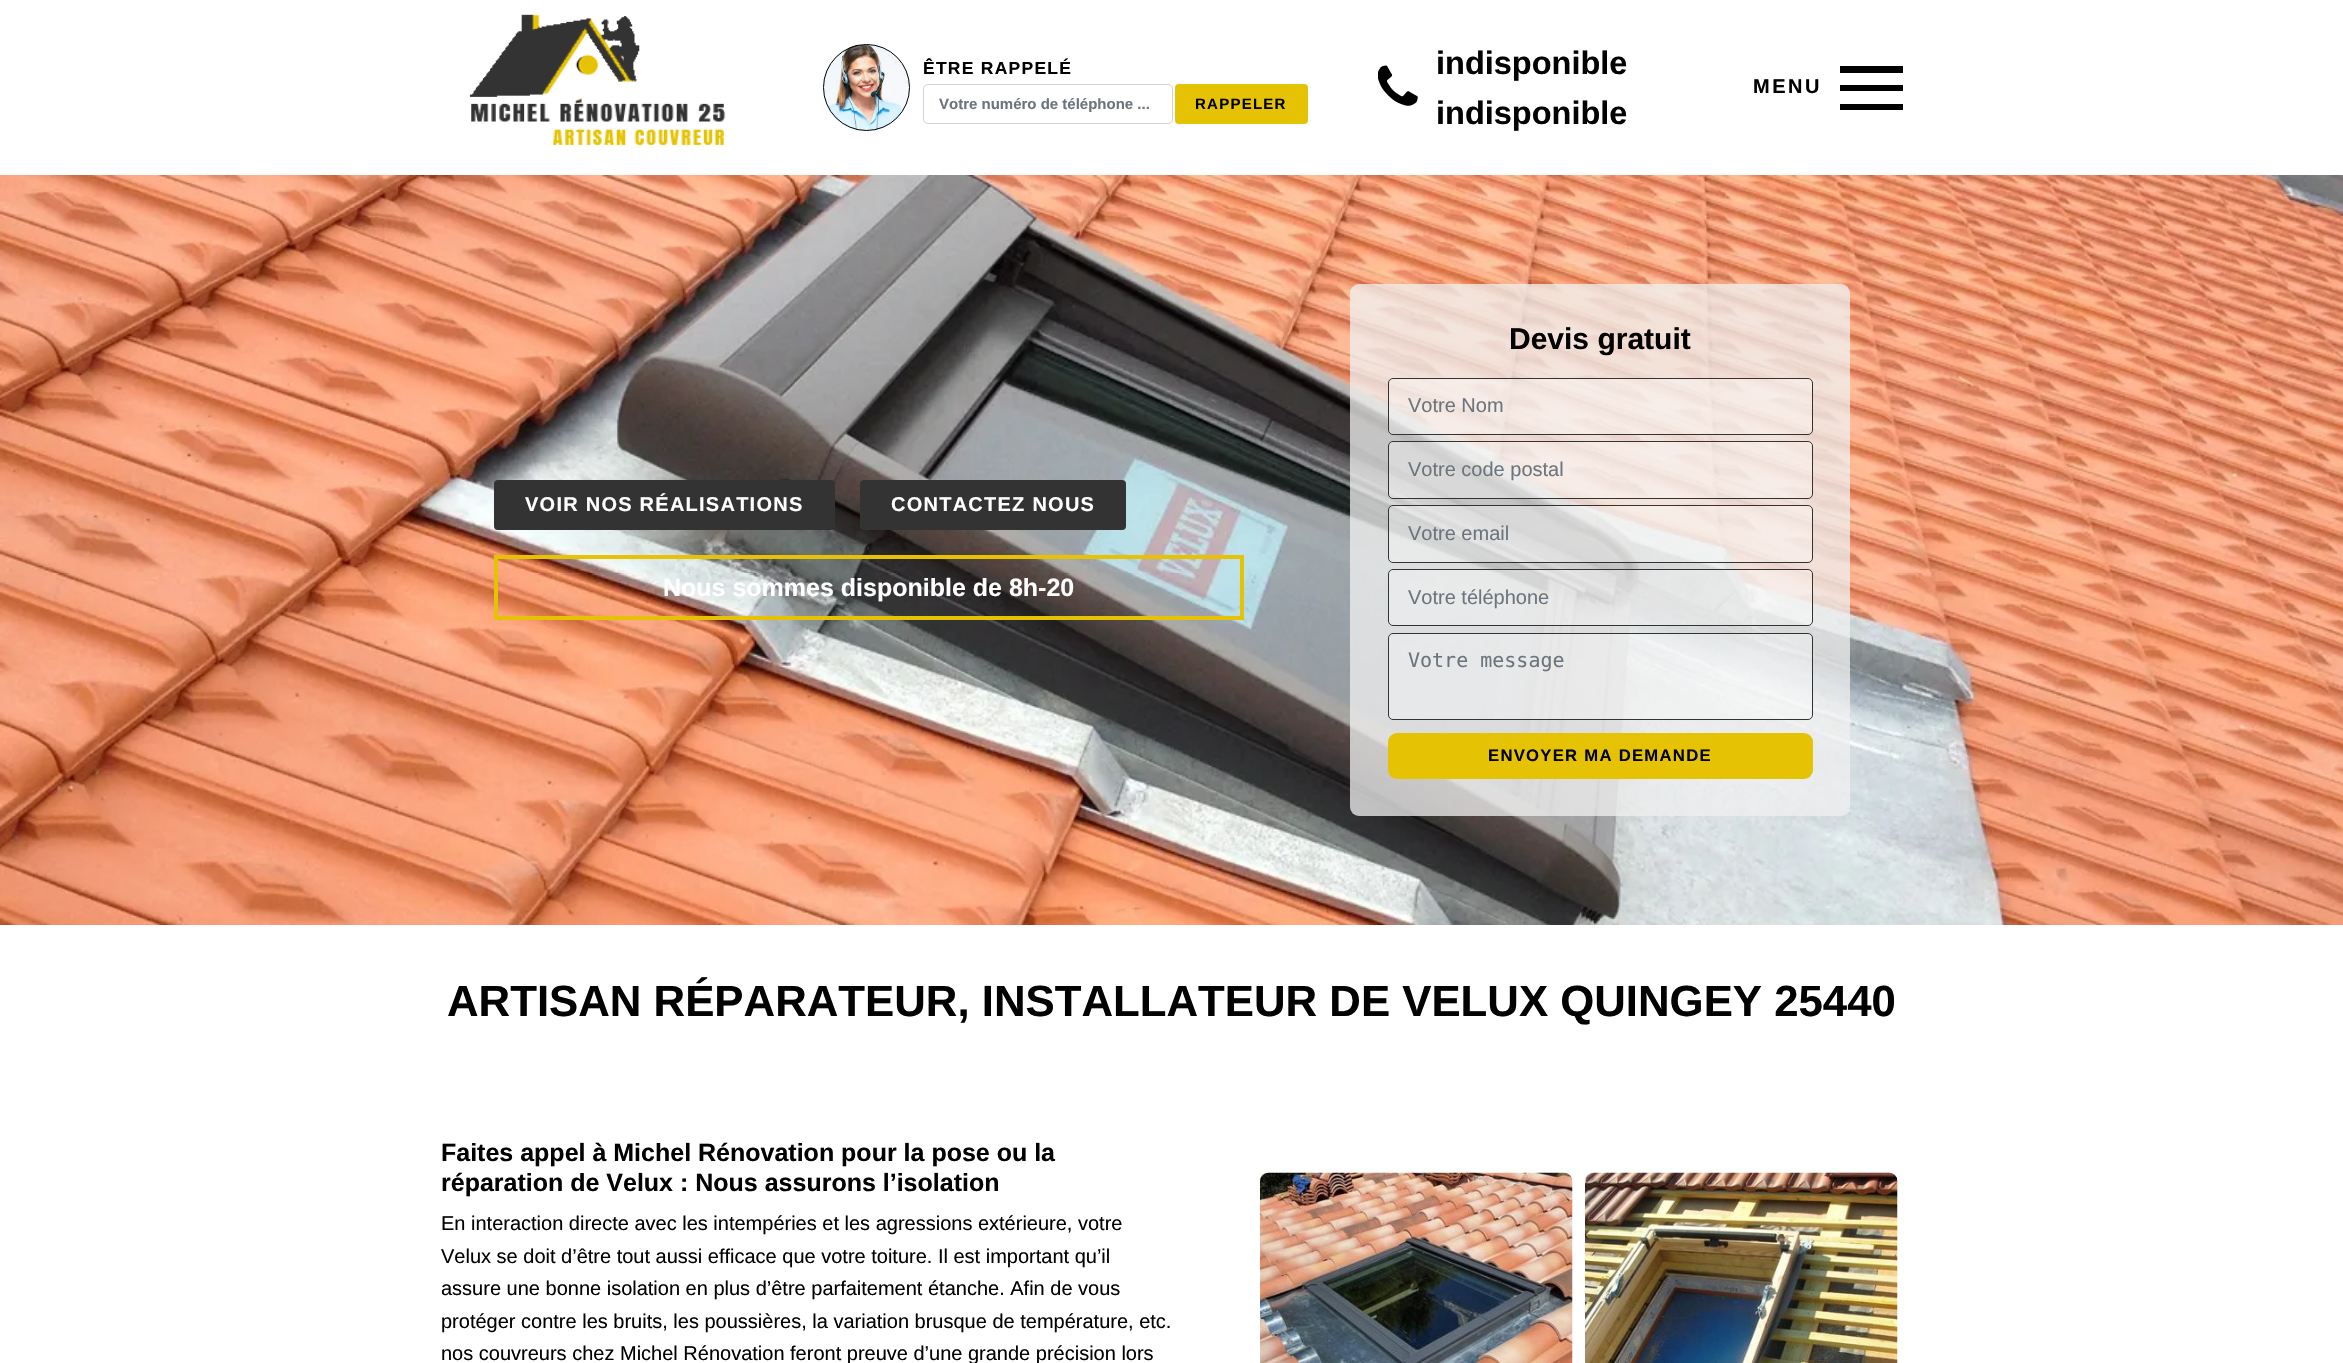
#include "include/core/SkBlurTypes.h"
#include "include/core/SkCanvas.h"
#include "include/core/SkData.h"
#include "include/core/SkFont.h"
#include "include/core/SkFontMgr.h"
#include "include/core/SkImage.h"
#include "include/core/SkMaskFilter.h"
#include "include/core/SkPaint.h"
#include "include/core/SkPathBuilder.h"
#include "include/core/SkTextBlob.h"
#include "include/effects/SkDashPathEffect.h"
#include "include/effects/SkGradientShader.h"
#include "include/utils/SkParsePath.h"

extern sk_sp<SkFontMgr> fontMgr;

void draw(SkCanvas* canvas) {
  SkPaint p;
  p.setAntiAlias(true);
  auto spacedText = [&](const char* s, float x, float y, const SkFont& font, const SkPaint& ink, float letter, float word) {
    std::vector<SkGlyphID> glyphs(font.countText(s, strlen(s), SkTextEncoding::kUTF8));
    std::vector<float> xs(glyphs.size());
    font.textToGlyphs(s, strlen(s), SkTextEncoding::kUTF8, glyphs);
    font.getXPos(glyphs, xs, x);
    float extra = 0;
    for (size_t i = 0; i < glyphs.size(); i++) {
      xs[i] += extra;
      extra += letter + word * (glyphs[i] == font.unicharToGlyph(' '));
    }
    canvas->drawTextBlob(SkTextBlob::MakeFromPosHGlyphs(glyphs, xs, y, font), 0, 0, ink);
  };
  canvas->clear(SK_ColorWHITE);
  canvas->drawImageRect(SkImages::DeferredFromEncodedData(SkData::MakeFromFileName("images/1.png")), SkRect::MakeLTRB(469, 14, 726, 146), SkSamplingOptions());
  canvas->drawImageRect(SkImages::DeferredFromEncodedData(SkData::MakeFromFileName("images/2.png")), SkRect::MakeLTRB(823, 45, 909, 130), SkSamplingOptions());
  p.setStyle(SkPaint::kStroke_Style);
  p.setStrokeWidth(1);
  p.setColor(SK_ColorBLACK);
  canvas->drawCircle(866.5f, 87.5f, 43, p);
  p.setColor(SkColorSetRGB(206, 212, 218));
  canvas->drawRoundRect(SkRect::MakeLTRB(923.5f, 84.5f, 1172.5f, 123.5f), 4.5f, 4.5f, p);
  p.setStyle(SkPaint::kFill_Style);
  p.setColor(SkColorSetRGB(229, 195, 4));
  canvas->drawRoundRect(SkRect::MakeLTRB(1175, 84, 1308, 124), 4, 4, p);
  canvas->drawImageRect(SkImages::DeferredFromEncodedData(SkData::MakeFromFileName("images/3.png")), SkRect::MakeLTRB(1378, 65, 1418, 106), SkSamplingOptions());
  p.setColor(SK_ColorBLACK);
  canvas->drawRect(SkRect::MakeLTRB(1840, 66, 1903, 73), p);
  canvas->drawRect(SkRect::MakeLTRB(1840, 85, 1903, 91), p);
  canvas->drawRect(SkRect::MakeLTRB(1840, 104, 1903, 110), p);
  canvas->drawImageRect(SkImages::DeferredFromEncodedData(SkData::MakeFromFileName("images/4.png")), SkRect::MakeLTRB(0, 175, 2343, 925), SkSamplingOptions());
  p.setColor(SkColorSetRGB(51, 51, 51));
  canvas->drawRoundRect(SkRect::MakeLTRB(494, 480, 835, 530), 4, 4, p);
  canvas->drawRoundRect(SkRect::MakeLTRB(860, 480, 1126, 530), 4, 4, p);
  p.setStyle(SkPaint::kStroke_Style);
  p.setStrokeWidth(4);
  p.setColor(SkColorSetRGB(229, 195, 4));
  canvas->drawRect(SkRect::MakeLTRB(496, 557, 1242, 618), p);
  p.setStyle(SkPaint::kFill_Style);
  p.setColor(SkColorSetARGB(194, 239, 239, 239));
  canvas->drawRoundRect(SkRect::MakeLTRB(1350, 284, 1850, 816), 9, 9, p);
  p.setColor(SkColorSetARGB(87, 255, 255, 255));
  canvas->drawRoundRect(SkRect::MakeLTRB(1388.5f, 378.5f, 1812.5f, 434.5f), 4.5f, 4.5f, p);
  p.setStyle(SkPaint::kStroke_Style);
  p.setStrokeWidth(1);
  p.setColor(SkColorSetRGB(51, 51, 51));
  canvas->drawRoundRect(SkRect::MakeLTRB(1388.5f, 378.5f, 1812.5f, 434.5f), 4.5f, 4.5f, p);
  p.setStyle(SkPaint::kFill_Style);
  p.setColor(SkColorSetARGB(87, 255, 255, 255));
  canvas->drawRoundRect(SkRect::MakeLTRB(1388.5f, 441.5f, 1812.5f, 498.5f), 4.5f, 4.5f, p);
  p.setStyle(SkPaint::kStroke_Style);
  p.setColor(SkColorSetRGB(51, 51, 51));
  canvas->drawRoundRect(SkRect::MakeLTRB(1388.5f, 441.5f, 1812.5f, 498.5f), 4.5f, 4.5f, p);
  p.setStyle(SkPaint::kFill_Style);
  p.setColor(SkColorSetARGB(87, 255, 255, 255));
  canvas->drawRoundRect(SkRect::MakeLTRB(1388.5f, 505.5f, 1812.5f, 562.5f), 4.5f, 4.5f, p);
  p.setStyle(SkPaint::kStroke_Style);
  p.setColor(SkColorSetRGB(51, 51, 51));
  canvas->drawRoundRect(SkRect::MakeLTRB(1388.5f, 505.5f, 1812.5f, 562.5f), 4.5f, 4.5f, p);
  p.setStyle(SkPaint::kFill_Style);
  p.setColor(SkColorSetARGB(87, 255, 255, 255));
  canvas->drawRoundRect(SkRect::MakeLTRB(1388.5f, 569.5f, 1812.5f, 625.5f), 4.5f, 4.5f, p);
  p.setStyle(SkPaint::kStroke_Style);
  p.setColor(SkColorSetRGB(51, 51, 51));
  canvas->drawRoundRect(SkRect::MakeLTRB(1388.5f, 569.5f, 1812.5f, 625.5f), 4.5f, 4.5f, p);
  p.setStyle(SkPaint::kFill_Style);
  p.setColor(SkColorSetARGB(87, 255, 255, 255));
  canvas->drawRoundRect(SkRect::MakeLTRB(1388.5f, 633.5f, 1812.5f, 719.5f), 4.5f, 4.5f, p);
  p.setStyle(SkPaint::kStroke_Style);
  p.setColor(SkColorSetRGB(51, 51, 51));
  canvas->drawRoundRect(SkRect::MakeLTRB(1388.5f, 633.5f, 1812.5f, 719.5f), 4.5f, 4.5f, p);
  p.setStyle(SkPaint::kFill_Style);
  p.setColor(SkColorSetRGB(229, 195, 4));
  canvas->drawRoundRect(SkRect::MakeLTRB(1388, 733, 1813, 779), 9, 9, p);
  canvas->drawImageRect(SkImages::DeferredFromEncodedData(SkData::MakeFromFileName("images/5.png")), SkRect::MakeLTRB(1260, 1172, 1573, 1363), SkSamplingOptions());
  canvas->drawImageRect(SkImages::DeferredFromEncodedData(SkData::MakeFromFileName("images/6.png")), SkRect::MakeLTRB(1585, 1172, 1898, 1363), SkSamplingOptions());
  SkFont font1(fontMgr->matchFamilyStyle("Liberation Sans", SkFontStyle::Bold()), 17.5f);
  font1.setSubpixel(true);
  p.setColor(SkColorSetRGB(2, 2, 3));
  spacedText("ÊTRE RAPPELÉ", 923, 74, font1, p, 1.25f, 0);
  SkFont font2(fontMgr->matchFamilyStyle("Liberation Sans", SkFontStyle::Bold()), 15);
  font2.setSubpixel(true);
  p.setColor(SkColorSetRGB(108, 117, 125));
  canvas->drawString("Votre numéro de téléphone ...", 939, 109, font2, p);
  p.setColor(SkColorSetRGB(2, 2, 3));
  spacedText("RAPPELER", 1195, 109, font2, p, 1.25f, 0);
  SkFont font3(fontMgr->matchFamilyStyle("Liberation Sans", SkFontStyle::Bold()), 32.5f);
  font3.setSubpixel(true);
  canvas->drawString("indisponible", 1436, 74, font3, p);
  canvas->drawString("indisponible", 1436, 124, font3, p);
  SkFont font4(fontMgr->matchFamilyStyle("Liberation Sans", SkFontStyle::Bold()), 20);
  font4.setSubpixel(true);
  spacedText("MENU", 1753, 93, font4, p, 2.5f, 0);
  p.setColor(SK_ColorWHITE);
  spacedText("VOIR NOS RÉALISATIONS", 525, 511, font4, p, 1.25f, 0);
  spacedText("CONTACTEZ NOUS", 891, 511, font4, p, 1.25f, 0);
  SkFont font5(fontMgr->matchFamilyStyle("Liberation Sans", SkFontStyle::Bold()), 25);
  font5.setSubpixel(true);
  canvas->drawString("Nous sommes disponible de 8h-20", 663, 596, font5, p);
  SkFont font6(fontMgr->matchFamilyStyle("Liberation Sans", SkFontStyle::Bold()), 30);
  font6.setSubpixel(true);
  p.setColor(SkColorSetRGB(2, 2, 3));
  canvas->drawString("Devis gratuit", 1509, 349, font6, p);
  SkFont font7(fontMgr->matchFamilyStyle("Liberation Sans", SkFontStyle::Normal()), 20);
  font7.setSubpixel(true);
  p.setColor(SkColorSetRGB(108, 117, 125));
  canvas->drawString("Votre Nom", 1408, 412, font7, p);
  canvas->drawString("Votre code postal", 1408, 476, font7, p);
  canvas->drawString("Votre email", 1408, 540, font7, p);
  canvas->drawString("Votre téléphone", 1408, 604, font7, p);
  SkFont font8(fontMgr->matchFamilyStyle("DejaVu Sans Mono", SkFontStyle::Normal()), 20);
  font8.setSubpixel(true);
  canvas->drawString("Votre message", 1408, 667, font8, p);
  SkFont font9(fontMgr->matchFamilyStyle("Liberation Sans", SkFontStyle::Bold()), 16.7f);
  font9.setSubpixel(true);
  p.setColor(SkColorSetRGB(2, 2, 3));
  spacedText("ENVOYER MA DEMANDE", 1488, 761, font9, p, 1.25f, 0);
  SkFont font10(fontMgr->matchFamilyStyle("Liberation Sans", SkFontStyle::Bold()), 43.75f);
  font10.setSubpixel(true);
  canvas->drawString("ARTISAN RÉPARATEUR, INSTALLATEUR DE VELUX QUINGEY 25440", 447, 1016, font10, p);
  canvas->drawString("Faites appel à Michel Rénovation pour la pose ou la", 441, 1161, font5, p);
  canvas->drawString("réparation de Velux : Nous assurons l’isolation", 441, 1191, font5, p);
  canvas->drawString("En interaction directe avec les intempéries et les agressions extérieure, votre", 441, 1230, font7, p);
  canvas->drawString("Velux se doit d’être tout aussi efficace que votre toiture. Il est important qu’il", 441, 1263, font7, p);
  canvas->drawString("assure une bonne isolation en plus d’être parfaitement étanche. Afin de vous", 441, 1295, font7, p);
  canvas->drawString("protéger contre les bruits, les poussières, la variation brusque de température, etc.", 441, 1328, font7, p);
  canvas->drawString("nos couvreurs chez Michel Rénovation feront preuve d’une grande précision lors", 441, 1360, font7, p);
}
